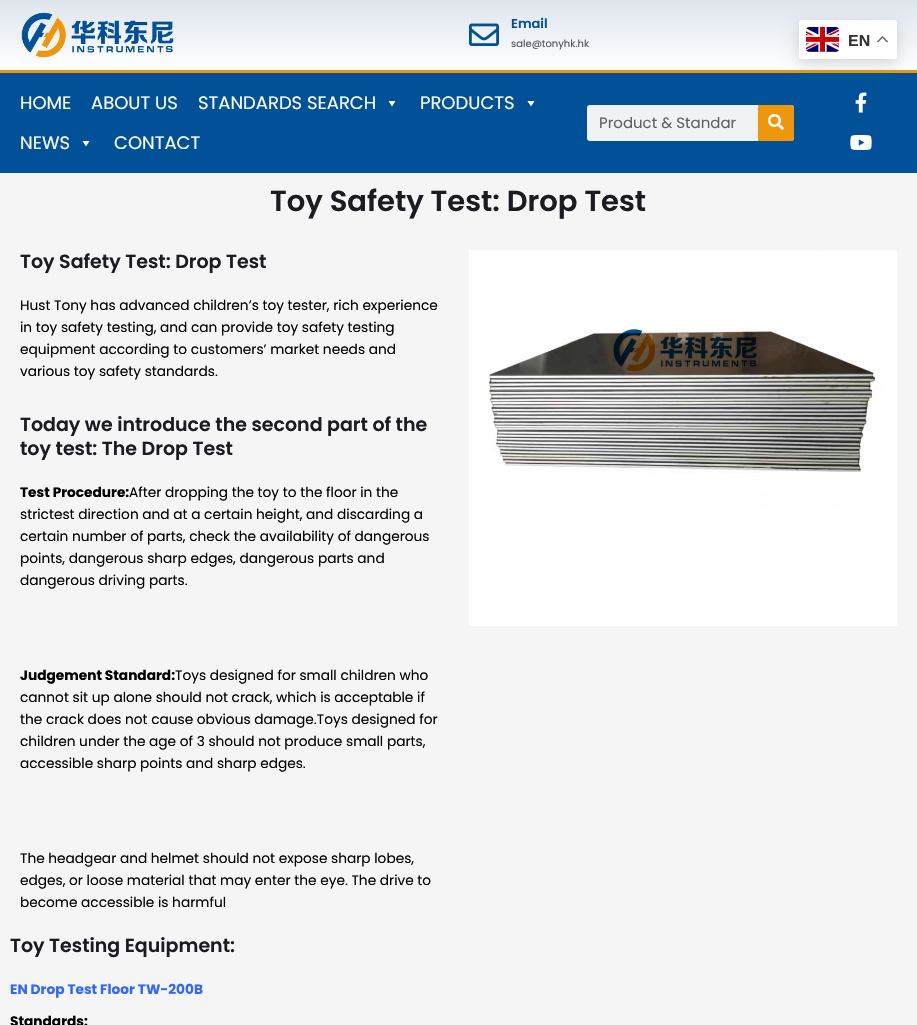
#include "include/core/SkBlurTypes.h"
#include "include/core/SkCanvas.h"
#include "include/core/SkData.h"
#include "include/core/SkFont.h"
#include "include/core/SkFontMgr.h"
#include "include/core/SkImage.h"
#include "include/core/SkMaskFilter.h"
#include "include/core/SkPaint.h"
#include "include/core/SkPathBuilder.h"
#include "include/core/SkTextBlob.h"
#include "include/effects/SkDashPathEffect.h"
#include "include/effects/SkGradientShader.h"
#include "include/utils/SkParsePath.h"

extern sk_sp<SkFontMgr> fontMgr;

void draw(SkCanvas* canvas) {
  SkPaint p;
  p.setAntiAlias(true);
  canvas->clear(SkColorSetRGB(245, 245, 245));
  {
    const SkColor colors[] = {SkColorSetRGB(221, 229, 236), SK_ColorWHITE};
    const float stops[] = {0, 1};
    const SkPoint ends[] = {{459, 0}, {459, 70}};
    p.setShader(SkGradientShader::MakeLinear(ends, colors, stops, 2, SkTileMode::kClamp));
    p.setAlpha(255);
  }
  canvas->drawRect(SkRect::MakeLTRB(0, 0, 917, 70), p);
  canvas->drawImageRect(SkImages::DeferredFromEncodedData(SkData::MakeFromFileName("images/1.png")), SkRect::MakeLTRB(21, 12, 174, 58), SkSamplingOptions());
  canvas->drawImageRect(SkImages::DeferredFromEncodedData(SkData::MakeFromFileName("images/2.png")), SkRect::MakeLTRB(469, 23, 499, 46), SkSamplingOptions());
  p.setShader(nullptr);
  p.setColor(SkColorSetRGB(0, 81, 151));
  canvas->drawRect(SkRect::MakeLTRB(0, 73, 917, 173), p);
  p.setColor(SkColorSetRGB(239, 151, 12));
  canvas->drawRect(SkRect::MakeLTRB(0, 70, 917, 73), p);
  p.setColor(SK_ColorWHITE);
  canvas->drawPath(SkPathBuilder().moveTo(395.5f, 101).lineTo(392, 106.5f).lineTo(388.5f, 101).close().detach(), p);
  canvas->drawPath(SkPathBuilder().moveTo(534.5f, 101).lineTo(531, 106.5f).lineTo(527.5f, 101).close().detach(), p);
  canvas->drawPath(SkPathBuilder().moveTo(89.5f, 141).lineTo(86, 146.5f).lineTo(82.5f, 141).close().detach(), p);
  p.setColor(SkColorSetRGB(241, 242, 243));
  canvas->drawRoundRect(SkRect::MakeLTRB(587, 105, 794, 141), 3, 3, p);
  p.setColor(SkColorSetRGB(239, 151, 12));
  canvas->drawPath(SkPathBuilder().moveTo(758, 105).lineTo(791, 105).cubicTo(792.5f, 105, 794, 106.5f, 794, 108).lineTo(794, 138).cubicTo(794, 139.5f, 792.5f, 141, 791, 141).lineTo(758, 141).close().detach(), p);
  canvas->drawImageRect(SkImages::DeferredFromEncodedData(SkData::MakeFromFileName("images/3.png")), SkRect::MakeLTRB(768, 114, 784, 130), SkSamplingOptions());
  canvas->drawImageRect(SkImages::DeferredFromEncodedData(SkData::MakeFromFileName("images/4.png")), SkRect::MakeLTRB(855, 92, 867, 113), SkSamplingOptions());
  canvas->drawImageRect(SkImages::DeferredFromEncodedData(SkData::MakeFromFileName("images/5.png")), SkRect::MakeLTRB(850, 135, 872, 150), SkSamplingOptions());
  canvas->drawImageRect(SkImages::DeferredFromEncodedData(SkData::MakeFromFileName("images/6.png")), SkRect::MakeLTRB(469, 250, 897, 626), SkSamplingOptions());
  p.setColor(SkColorSetARGB(38, 0, 0, 0));
  p.setMaskFilter(SkMaskFilter::MakeBlur(kNormal_SkBlurStyle, 7.5f));
  canvas->drawRoundRect(SkRect::MakeLTRB(799, 25, 897, 64), 2, 2, p);
  p.setMaskFilter(nullptr);
  p.setColor(SK_ColorWHITE);
  canvas->drawRoundRect(SkRect::MakeLTRB(799, 20, 897, 59), 2, 2, p);
  canvas->drawImageRect(SkImages::DeferredFromEncodedData(SkData::MakeFromFileName("images/7.png")), SkRect::MakeLTRB(806, 27, 839, 52), SkSamplingOptions());
  canvas->drawImageRect(SkImages::DeferredFromEncodedData(SkData::MakeFromFileName("images/8.png")), SkRect::MakeLTRB(877, 36, 888, 43), SkSamplingOptions());
  SkFont font1(fontMgr->matchFamilyStyle("Poppins", SkFontStyle(600, SkFontStyle::kNormal_Width, SkFontStyle::kUpright_Slant)), 13);
  font1.setSubpixel(true);
  p.setColor(SkColorSetRGB(0, 81, 151));
  canvas->drawString("Email", 511, 28, font1, p);
  SkFont font2(fontMgr->matchFamilyStyle("Poppins", SkFontStyle::Normal()), 10);
  font2.setSubpixel(true);
  p.setColor(SkColorSetRGB(75, 79, 88));
  canvas->drawString("sale@tonyhk.hk", 511, 47, font2, p);
  SkFont font3(fontMgr->matchFamilyStyle("Poppins", SkFontStyle::Normal()), 18);
  font3.setSubpixel(true);
  p.setColor(SK_ColorWHITE);
  canvas->drawString("HOME", 20, 109, font3, p);
  canvas->drawString("ABOUT US", 91, 109, font3, p);
  canvas->drawString("STANDARDS SEARCH", 198, 109, font3, p);
  canvas->drawString("PRODUCTS", 420, 109, font3, p);
  canvas->drawString("NEWS", 20, 149, font3, p);
  canvas->drawString("CONTACT", 114, 149, font3, p);
  SkFont font4(fontMgr->matchFamilyStyle("Poppins", SkFontStyle::Normal()), 15);
  font4.setSubpixel(true);
  p.setColor(SkColorSetRGB(96, 97, 97));
  canvas->drawString("Product & Standar", 599, 128, font4, p);
  SkFont font5(fontMgr->matchFamilyStyle("Poppins", SkFontStyle(600, SkFontStyle::kNormal_Width, SkFontStyle::kUpright_Slant)), 29);
  font5.setSubpixel(true);
  p.setColor(SkColorSetRGB(28, 27, 34));
  canvas->drawString("Toy Safety Test: Drop Test", 270, 211, font5, p);
  SkFont font6(fontMgr->matchFamilyStyle("Poppins", SkFontStyle(600, SkFontStyle::kNormal_Width, SkFontStyle::kUpright_Slant)), 19);
  font6.setSubpixel(true);
  canvas->drawString("Toy Safety Test: Drop Test", 20, 268, font6, p);
  SkFont font7(fontMgr->matchFamilyStyle("Poppins", SkFontStyle::Normal()), 13.7f);
  font7.setSubpixel(true);
  p.setColor(SK_ColorBLACK);
  canvas->drawString("Hust Tony has advanced children’s toy tester, rich experience", 20, 310, font7, p);
  canvas->drawString("in toy safety testing, and can provide toy safety testing", 20, 332, font7, p);
  canvas->drawString("equipment according to customers’ market needs and", 20, 354, font7, p);
  canvas->drawString("various toy safety standards.", 20, 376, font7, p);
  p.setColor(SkColorSetRGB(28, 27, 34));
  canvas->drawString("Today we introduce the second part of the", 20, 431, font6, p);
  canvas->drawString("toy test: The Drop Test", 20, 455, font6, p);
  SkFont font8(fontMgr->matchFamilyStyle("Poppins", SkFontStyle::Bold()), 13.7f);
  font8.setSubpixel(true);
  p.setColor(SK_ColorBLACK);
  canvas->drawString("Test Procedure:", 20, 497, font8, p);
  canvas->drawString("After dropping the toy to the floor in the", 129, 497, font7, p);
  canvas->drawString("strictest direction and at a certain height, and discarding a", 20, 519, font7, p);
  canvas->drawString("certain number of parts, check the availability of dangerous", 20, 541, font7, p);
  canvas->drawString("points, dangerous sharp edges, dangerous parts and", 20, 563, font7, p);
  canvas->drawString("dangerous driving parts.", 20, 585, font7, p);
  canvas->drawString("Judgement Standard:", 20, 680, font8, p);
  canvas->drawString("Toys designed for small children who", 175, 680, font7, p);
  canvas->drawString("cannot sit up alone should not crack, which is acceptable if", 20, 702, font7, p);
  canvas->drawString("the crack does not cause obvious damage.Toys designed for", 20, 724, font7, p);
  canvas->drawString("children under the age of 3 should not produce small parts,", 20, 746, font7, p);
  canvas->drawString("accessible sharp points and sharp edges.", 20, 768, font7, p);
  canvas->drawString("The headgear and helmet should not expose sharp lobes,", 20, 863, font7, p);
  canvas->drawString("edges, or loose material that may enter the eye. The drive to", 20, 885, font7, p);
  canvas->drawString("become accessible is harmful", 20, 907, font7, p);
  p.setColor(SkColorSetRGB(28, 27, 34));
  canvas->drawString("Toy Testing Equipment:", 10, 952, font6, p);
  p.setColor(SkColorSetRGB(51, 102, 255));
  canvas->drawString("EN Drop Test Floor TW-200B", 10, 994, font8, p);
  p.setColor(SK_ColorBLACK);
  canvas->drawString("Standards:", 10, 1026, font8, p);
  SkFont font9(fontMgr->matchFamilyStyle("Liberation Sans", SkFontStyle::Bold()), 16);
  font9.setSubpixel(true);
  p.setColor(SkColorSetRGB(51, 51, 51));
  canvas->drawString("EN", 848, 46, font9, p);
}
